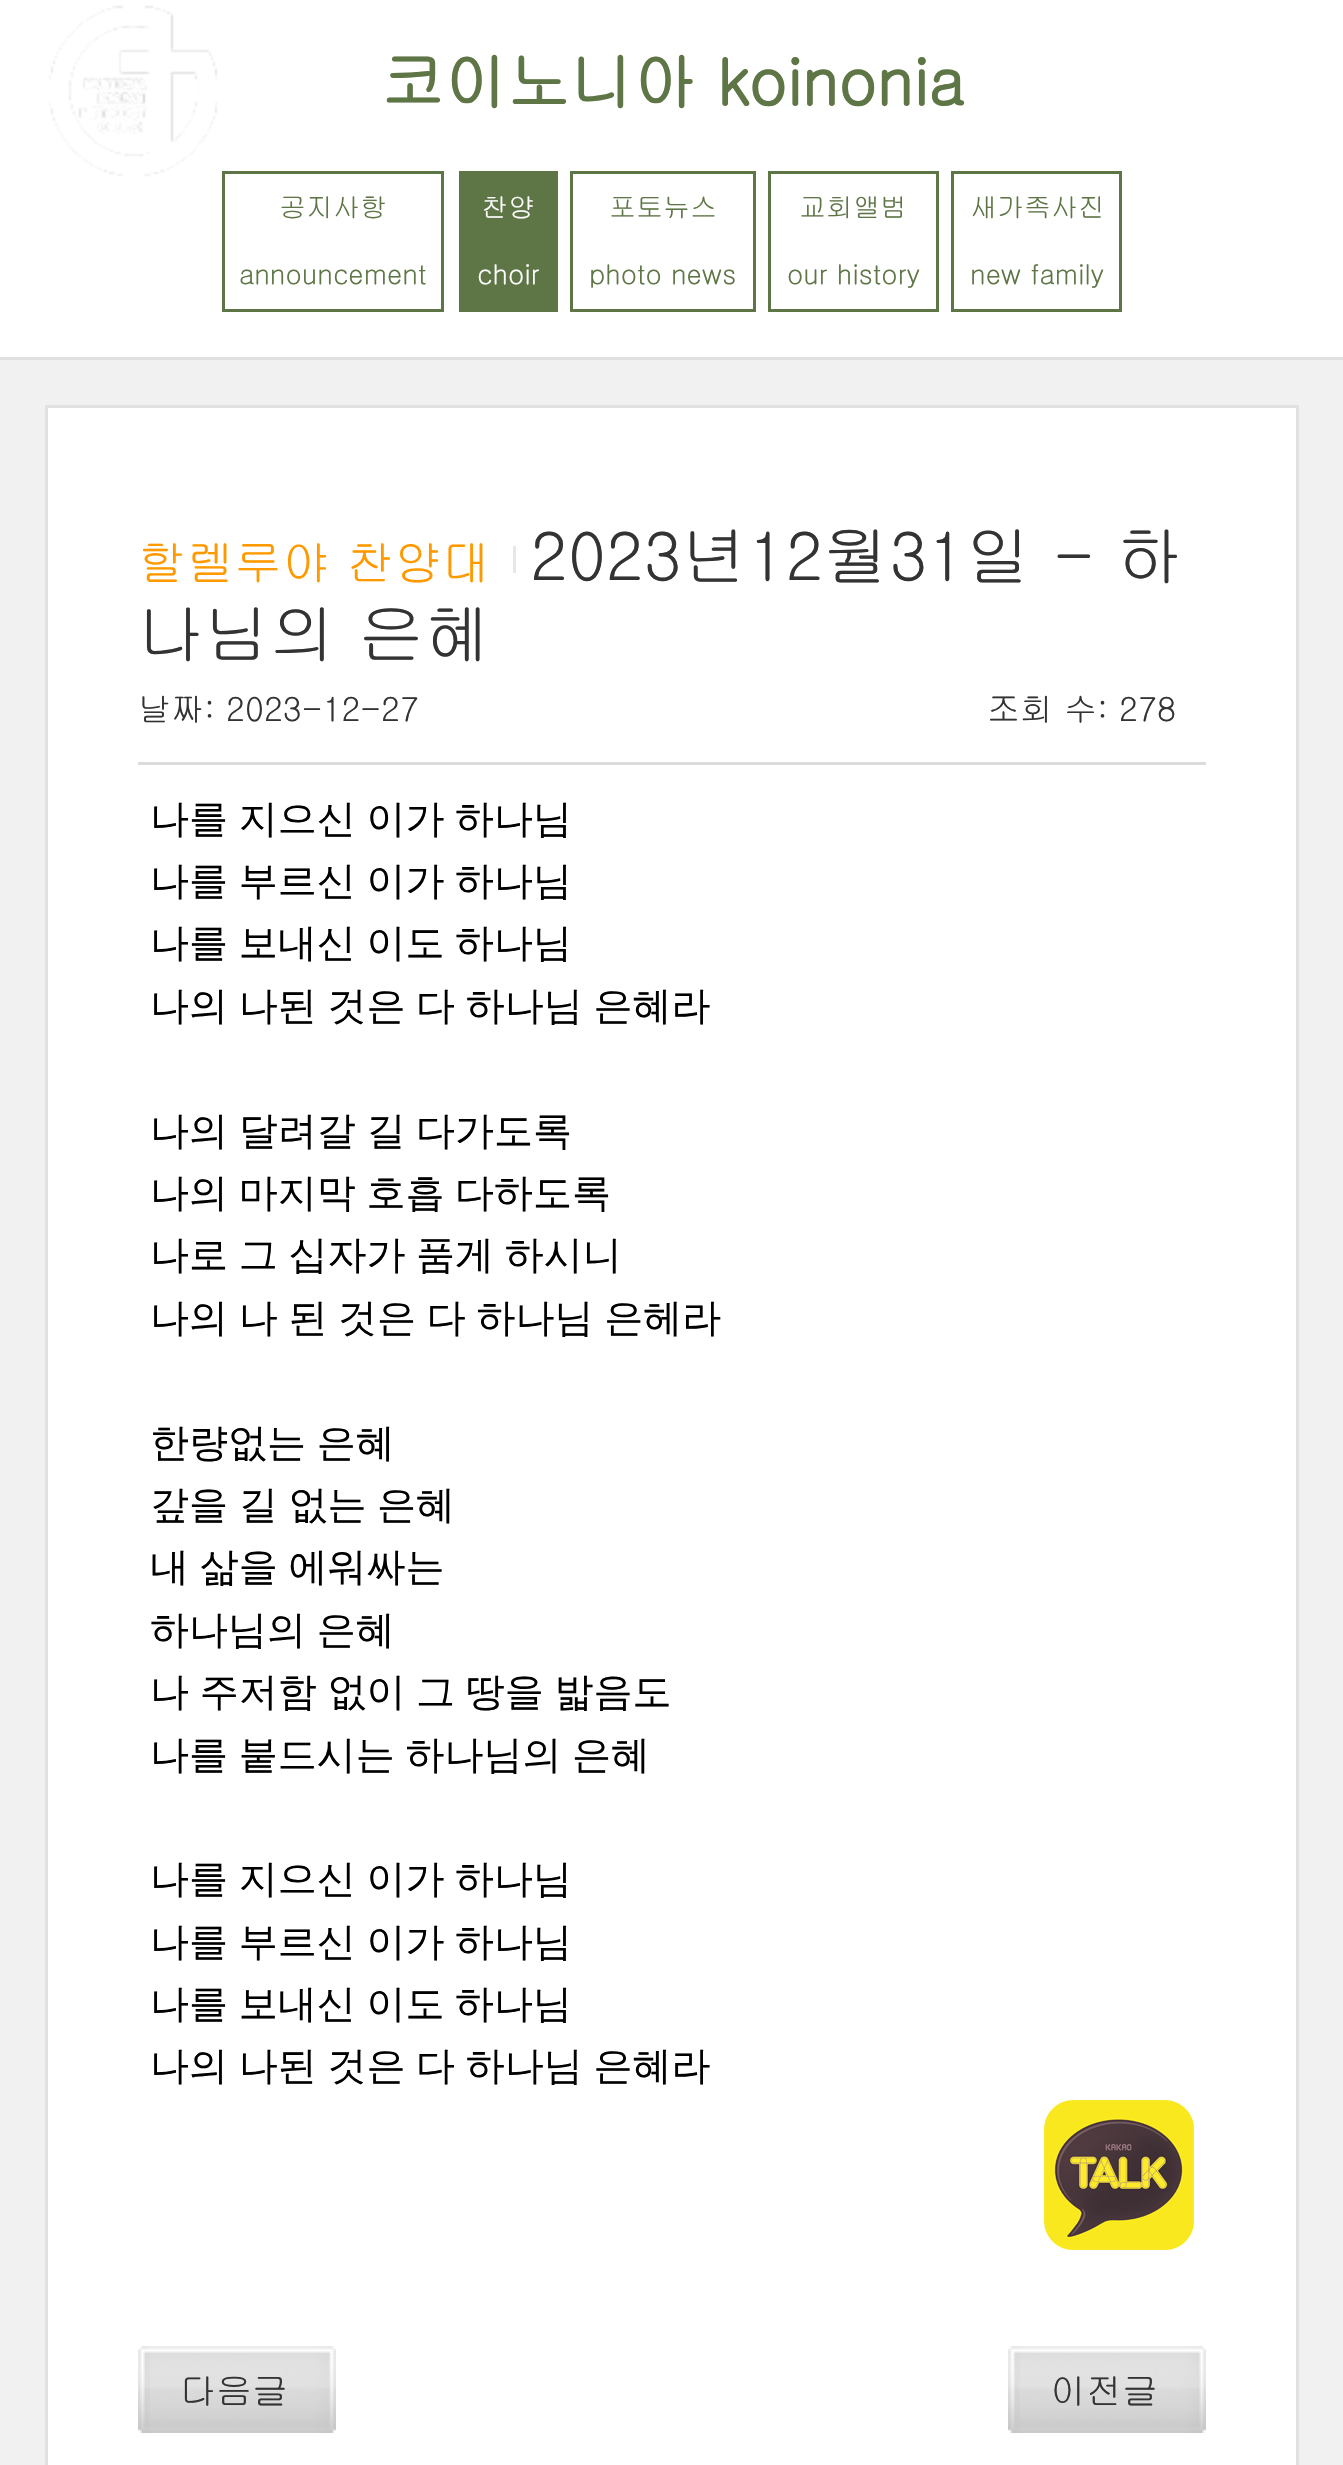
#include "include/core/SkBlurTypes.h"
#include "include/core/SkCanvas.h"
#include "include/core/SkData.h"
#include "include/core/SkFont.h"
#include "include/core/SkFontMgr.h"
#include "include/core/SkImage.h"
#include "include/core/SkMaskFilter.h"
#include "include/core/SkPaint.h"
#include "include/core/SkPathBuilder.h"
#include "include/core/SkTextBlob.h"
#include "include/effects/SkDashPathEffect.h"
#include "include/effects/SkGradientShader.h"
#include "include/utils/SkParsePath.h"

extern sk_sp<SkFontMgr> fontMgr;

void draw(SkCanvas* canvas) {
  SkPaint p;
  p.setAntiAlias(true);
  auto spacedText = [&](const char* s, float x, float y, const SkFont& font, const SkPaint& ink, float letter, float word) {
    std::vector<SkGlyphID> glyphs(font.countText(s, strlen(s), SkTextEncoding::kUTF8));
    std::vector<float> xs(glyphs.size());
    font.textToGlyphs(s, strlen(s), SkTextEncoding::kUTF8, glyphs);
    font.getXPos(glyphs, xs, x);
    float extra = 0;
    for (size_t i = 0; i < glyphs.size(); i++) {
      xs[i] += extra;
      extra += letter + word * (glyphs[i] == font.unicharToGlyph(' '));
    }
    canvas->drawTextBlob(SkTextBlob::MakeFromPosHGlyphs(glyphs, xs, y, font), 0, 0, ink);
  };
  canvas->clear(SkColorSetRGB(241, 241, 241));
  p.setColor(SK_ColorWHITE);
  canvas->drawRect(SkRect::MakeLTRB(0, 0, 1343, 357), p);
  canvas->drawImageRect(SkImages::DeferredFromEncodedData(SkData::MakeFromFileName("images/1.png")), SkRect::MakeLTRB(49, 5, 218, 177), SkSamplingOptions());
  p.setColor(SkColorSetRGB(225, 225, 225));
  canvas->drawRect(SkRect::MakeLTRB(0, 357, 1343, 360), p);
  p.setStyle(SkPaint::kStroke_Style);
  p.setStrokeWidth(3);
  p.setColor(SkColorSetRGB(94, 117, 70));
  canvas->drawRect(SkRect::MakeLTRB(223.5f, 172.5f, 442.5f, 310.5f), p);
  p.setStyle(SkPaint::kFill_Style);
  canvas->drawRect(SkRect::MakeLTRB(459, 171, 558, 312), p);
  p.setStyle(SkPaint::kStroke_Style);
  canvas->drawRect(SkRect::MakeLTRB(571.5f, 172.5f, 754.5f, 310.5f), p);
  canvas->drawRect(SkRect::MakeLTRB(769.5f, 172.5f, 937.5f, 310.5f), p);
  canvas->drawRect(SkRect::MakeLTRB(952.5f, 172.5f, 1120.5f, 310.5f), p);
  p.setStyle(SkPaint::kFill_Style);
  p.setColor(SK_ColorWHITE);
  canvas->drawRect(SkRect::MakeLTRB(46.5f, 406.5f, 1297.5f, 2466.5f), p);
  p.setStyle(SkPaint::kStroke_Style);
  p.setColor(SkColorSetRGB(225, 225, 225));
  canvas->drawRect(SkRect::MakeLTRB(46.5f, 406.5f, 1297.5f, 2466.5f), p);
  p.setStyle(SkPaint::kFill_Style);
  p.setColor(SkColorSetRGB(219, 219, 219));
  canvas->drawRect(SkRect::MakeLTRB(138, 762, 1206, 765), p);
  p.setColor(SkColorSetRGB(231, 231, 231));
  canvas->drawRect(SkRect::MakeLTRB(513, 546, 516, 573), p);
  canvas->drawImageRect(SkImages::DeferredFromEncodedData(SkData::MakeFromFileName("images/2.png")), SkRect::MakeLTRB(1044, 2100, 1194, 2250), SkSamplingOptions());
  canvas->drawImageRect(SkImages::DeferredFromEncodedData(SkData::MakeFromFileName("images/3.png")), SkRect::MakeLTRB(138, 2346, 150, 2433), SkSamplingOptions());
  canvas->drawImageRect(SkImages::DeferredFromEncodedData(SkData::MakeFromFileName("images/4.png")), SkRect::MakeLTRB(150, 2346, 336, 2433), SkSamplingOptions());
  canvas->drawImageRect(SkImages::DeferredFromEncodedData(SkData::MakeFromFileName("images/3.png")), SkRect::MakeLTRB(1008, 2346, 1020, 2433), SkSamplingOptions());
  canvas->drawImageRect(SkImages::DeferredFromEncodedData(SkData::MakeFromFileName("images/4.png")), SkRect::MakeLTRB(1020, 2346, 1206, 2433), SkSamplingOptions());
  SkFont font1(fontMgr->matchFamilyStyle("Gulim", SkFontStyle::Bold()), 63);
  font1.setSubpixel(true);
  p.setColor(SkColorSetRGB(94, 117, 70));
  canvas->drawString("코이노니아 koinonia", 381, 105, font1, p);
  SkFont font2(fontMgr->matchFamilyStyle("Gulim", SkFontStyle::Normal()), 27);
  font2.setSubpixel(true);
  canvas->drawString("공지사항", 279, 217, font2, p);
  canvas->drawString("announcement", 239, 284, font2, p);
  p.setColor(SK_ColorWHITE);
  canvas->drawString("찬양", 481, 217, font2, p);
  canvas->drawString("choir", 477, 284, font2, p);
  p.setColor(SkColorSetRGB(94, 117, 70));
  canvas->drawString("포토뉴스", 609, 217, font2, p);
  canvas->drawString("photo news", 589, 284, font2, p);
  canvas->drawString("교회앨범", 799, 217, font2, p);
  canvas->drawString("our history", 787, 284, font2, p);
  canvas->drawString("새가족사진", 970, 217, font2, p);
  canvas->drawString("new family", 970, 284, font2, p);
  SkFont font3(fontMgr->matchFamilyStyle("Gulim", SkFontStyle::Normal()), 48);
  font3.setSubpixel(true);
  p.setColor(SkColorSetRGB(255, 153, 0));
  canvas->drawString("할렐루야 찬양대", 138, 580, font3, p);
  SkFont font4(fontMgr->matchFamilyStyle("Gulim", SkFontStyle::Normal()), 66);
  font4.setSubpixel(true);
  p.setColor(SkColorSetRGB(51, 51, 51));
  canvas->drawString("2023년12월31일 - 하", 530, 580, font4, p);
  canvas->drawString("나님의 은혜", 138, 658, font4, p);
  SkFont font5(fontMgr->matchFamilyStyle("Gulim", SkFontStyle::Normal()), 33);
  font5.setSubpixel(true);
  canvas->drawString("날짜: 2023-12-27", 138, 721, font5, p);
  canvas->drawString("조회 수: 278", 987, 721, font5, p);
  SkFont font6(fontMgr->matchFamilyStyle("WenQuanYi Zen Hei", SkFontStyle(500, SkFontStyle::kNormal_Width, SkFontStyle::kUpright_Slant)), 39);
  font6.setSubpixel(true);
  p.setColor(SK_ColorBLACK);
  spacedText("나를 지으신 이가 하나님", 150, 832, font6, p, 0, -1);
  spacedText("나를 부르신 이가 하나님", 150, 894, font6, p, 0, -1);
  spacedText("나를 보내신 이도 하나님", 150, 956, font6, p, 0, -1);
  spacedText("나의 나된 것은 다 하나님 은혜라", 150, 1019, font6, p, 0, -1);
  spacedText("나의 달려갈 길 다가도록", 150, 1144, font6, p, 0, -1);
  spacedText("나의 마지막 호흡 다하도록", 150, 1206, font6, p, 0, -1);
  spacedText("나로 그 십자가 품게 하시니", 150, 1268, font6, p, 0, -1);
  spacedText("나의 나 된 것은 다 하나님 은헤라", 150, 1331, font6, p, 0, -1);
  spacedText("한량없는 은혜", 150, 1456, font6, p, 0, -1);
  spacedText("갚을 길 없는 은혜", 150, 1518, font6, p, 0, -1);
  spacedText("내 삶을 에워싸는", 150, 1580, font6, p, 0, -1);
  spacedText("하나님의 은혜", 150, 1643, font6, p, 0, -1);
  spacedText("나 주저함 없이 그 땅을 밟음도", 150, 1705, font6, p, 0, -1);
  spacedText("나를 붙드시는 하나님의 은혜", 150, 1768, font6, p, 0, -1);
  spacedText("나를 지으신 이가 하나님", 150, 1892, font6, p, 0, -1);
  spacedText("나를 부르신 이가 하나님", 150, 1955, font6, p, 0, -1);
  spacedText("나를 보내신 이도 하나님", 150, 2017, font6, p, 0, -1);
  spacedText("나의 나된 것은 다 하나님 은혜라", 150, 2079, font6, p, 0, -1);
  SkFont font7(fontMgr->matchFamilyStyle("Gulim", SkFontStyle::Normal()), 36);
  font7.setSubpixel(true);
  p.setColor(SkColorSetRGB(51, 51, 51));
  canvas->drawString("다음글", 180, 2404, font7, p);
  canvas->drawString("이전글", 1050, 2404, font7, p);
}
